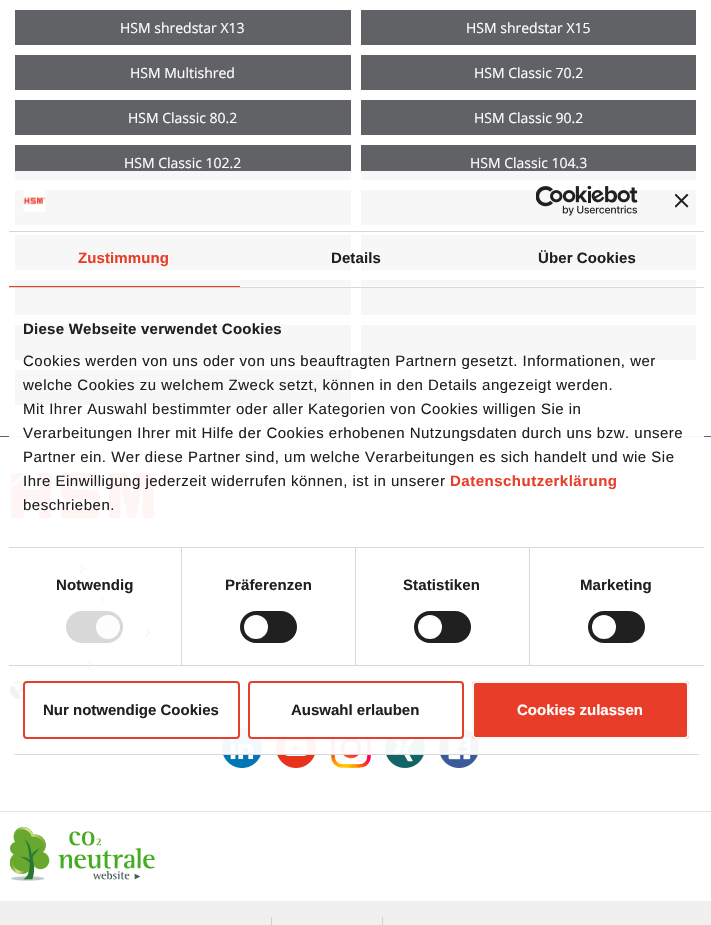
#include "include/core/SkBlurTypes.h"
#include "include/core/SkCanvas.h"
#include "include/core/SkData.h"
#include "include/core/SkFont.h"
#include "include/core/SkFontMgr.h"
#include "include/core/SkImage.h"
#include "include/core/SkMaskFilter.h"
#include "include/core/SkPaint.h"
#include "include/core/SkPathBuilder.h"
#include "include/core/SkTextBlob.h"
#include "include/effects/SkDashPathEffect.h"
#include "include/effects/SkGradientShader.h"
#include "include/utils/SkParsePath.h"

extern sk_sp<SkFontMgr> fontMgr;

void draw(SkCanvas* canvas) {
  SkPaint p;
  p.setAntiAlias(true);
  auto spacedText = [&](const char* s, float x, float y, const SkFont& font, const SkPaint& ink, float letter, float word) {
    std::vector<SkGlyphID> glyphs(font.countText(s, strlen(s), SkTextEncoding::kUTF8));
    std::vector<float> xs(glyphs.size());
    font.textToGlyphs(s, strlen(s), SkTextEncoding::kUTF8, glyphs);
    font.getXPos(glyphs, xs, x);
    float extra = 0;
    for (size_t i = 0; i < glyphs.size(); i++) {
      xs[i] += extra;
      extra += letter + word * (glyphs[i] == font.unicharToGlyph(' '));
    }
    canvas->drawTextBlob(SkTextBlob::MakeFromPosHGlyphs(glyphs, xs, y, font), 0, 0, ink);
  };
  canvas->clear(SK_ColorWHITE);
  p.setColor(SkColorSetRGB(97, 98, 101));
  canvas->drawRect(SkRect::MakeLTRB(15, 10, 351, 45), p);
  canvas->drawRect(SkRect::MakeLTRB(361, 10, 696, 45), p);
  canvas->drawRect(SkRect::MakeLTRB(15, 55, 351, 90), p);
  canvas->drawRect(SkRect::MakeLTRB(361, 55, 696, 90), p);
  canvas->drawRect(SkRect::MakeLTRB(15, 100, 351, 135), p);
  canvas->drawRect(SkRect::MakeLTRB(361, 100, 696, 135), p);
  canvas->drawRect(SkRect::MakeLTRB(15, 145, 351, 180), p);
  canvas->drawRect(SkRect::MakeLTRB(361, 145, 696, 180), p);
  canvas->drawRect(SkRect::MakeLTRB(15, 190, 351, 225), p);
  canvas->drawRect(SkRect::MakeLTRB(361, 190, 696, 225), p);
  canvas->drawRect(SkRect::MakeLTRB(15, 235, 351, 270), p);
  canvas->drawRect(SkRect::MakeLTRB(361, 235, 696, 270), p);
  canvas->drawRect(SkRect::MakeLTRB(15, 280, 351, 315), p);
  canvas->drawRect(SkRect::MakeLTRB(361, 280, 696, 315), p);
  canvas->drawRect(SkRect::MakeLTRB(15, 325, 351, 360), p);
  canvas->drawRect(SkRect::MakeLTRB(361, 325, 696, 360), p);
  canvas->drawRect(SkRect::MakeLTRB(15, 370, 351, 405), p);
  canvas->drawRect(SkRect::MakeLTRB(0, 436, 711, 437), p);
  canvas->drawImageRect(SkImages::DeferredFromEncodedData(SkData::MakeFromFileName("images/1.png")), SkRect::MakeLTRB(11, 470, 174, 519), SkSamplingOptions());
  canvas->drawImageRect(SkImages::DeferredFromEncodedData(SkData::MakeFromFileName("images/2.png")), SkRect::MakeLTRB(79, 564, 85, 574), SkSamplingOptions());
  canvas->drawImageRect(SkImages::DeferredFromEncodedData(SkData::MakeFromFileName("images/2.png")), SkRect::MakeLTRB(100, 596, 106, 606), SkSamplingOptions());
  canvas->drawImageRect(SkImages::DeferredFromEncodedData(SkData::MakeFromFileName("images/2.png")), SkRect::MakeLTRB(145, 628, 151, 638), SkSamplingOptions());
  canvas->drawImageRect(SkImages::DeferredFromEncodedData(SkData::MakeFromFileName("images/2.png")), SkRect::MakeLTRB(87, 660, 93, 670), SkSamplingOptions());
  canvas->drawImageRect(SkImages::DeferredFromEncodedData(SkData::MakeFromFileName("images/3.png")), SkRect::MakeLTRB(10, 681, 28, 699), SkSamplingOptions());
  p.setColor(SkColorSetRGB(226, 226, 227));
  canvas->drawRect(SkRect::MakeLTRB(0, 811, 711, 812), p);
  canvas->drawImageRect(SkImages::DeferredFromEncodedData(SkData::MakeFromFileName("images/4.png")), SkRect::MakeLTRB(222, 728, 262, 768), SkSamplingOptions());
  canvas->drawImageRect(SkImages::DeferredFromEncodedData(SkData::MakeFromFileName("images/5.png")), SkRect::MakeLTRB(276, 728, 316, 768), SkSamplingOptions());
  canvas->drawImageRect(SkImages::DeferredFromEncodedData(SkData::MakeFromFileName("images/6.png")), SkRect::MakeLTRB(331, 728, 371, 768), SkSamplingOptions());
  canvas->drawImageRect(SkImages::DeferredFromEncodedData(SkData::MakeFromFileName("images/7.png")), SkRect::MakeLTRB(385, 728, 425, 768), SkSamplingOptions());
  canvas->drawImageRect(SkImages::DeferredFromEncodedData(SkData::MakeFromFileName("images/8.png")), SkRect::MakeLTRB(439, 728, 479, 768), SkSamplingOptions());
  canvas->drawImageRect(SkImages::DeferredFromEncodedData(SkData::MakeFromFileName("images/9.png")), SkRect::MakeLTRB(10, 827, 155, 881), SkSamplingOptions());
  p.setColor(SkColorSetRGB(240, 240, 241));
  canvas->drawRect(SkRect::MakeLTRB(0, 901, 711, 925), p);
  p.setColor(SkColorSetRGB(210, 210, 210));
  canvas->drawRect(SkRect::MakeLTRB(271, 917, 272, 925), p);
  canvas->drawRect(SkRect::MakeLTRB(382, 917, 383, 925), p);
  p.setColor(SkColorSetARGB(242, 255, 255, 255));
  canvas->drawRoundRect(SkRect::MakeLTRB(9, 171, 704, 755), 8, 8, p);
  p.setColor(SkColorSetRGB(216, 216, 216));
  canvas->drawRect(SkRect::MakeLTRB(9, 231, 704, 232), p);
  canvas->drawImageRect(SkImages::DeferredFromEncodedData(SkData::MakeFromFileName("images/10.png")), SkRect::MakeLTRB(23, 190, 46, 212), SkSamplingOptions());
  canvas->drawImageRect(SkImages::DeferredFromEncodedData(SkData::MakeFromFileName("images/11.png")), SkRect::MakeLTRB(536, 186, 638, 216), SkSamplingOptions());
  canvas->drawImageRect(SkImages::DeferredFromEncodedData(SkData::MakeFromFileName("images/12.png")), SkRect::MakeLTRB(675, 194, 689, 208), SkSamplingOptions());
  p.setColor(SkColorSetARGB(242, 214, 214, 214));
  canvas->drawRect(SkRect::MakeLTRB(9, 287, 704, 288), p);
  p.setColor(SkColorSetARGB(242, 231, 51, 28));
  canvas->drawRect(SkRect::MakeLTRB(9, 286, 240, 287), p);
  p.setColor(SkColorSetARGB(242, 255, 255, 255));
  canvas->drawRect(SkRect::MakeLTRB(240, 286, 472, 287), p);
  canvas->drawRect(SkRect::MakeLTRB(472, 286, 704, 287), p);
  p.setColor(SkColorSetRGB(216, 216, 216));
  canvas->drawRect(SkRect::MakeLTRB(9, 547, 704, 548), p);
  p.setColor(SkColorSetARGB(242, 214, 214, 214));
  canvas->drawRect(SkRect::MakeLTRB(9, 665, 704, 666), p);
  p.setColor(SkColorSetRGB(216, 216, 216));
  canvas->drawRect(SkRect::MakeLTRB(181, 548, 182, 665), p);
  p.setColor(SkColorSetARGB(242, 214, 214, 214));
  canvas->drawRoundRect(SkRect::MakeLTRB(66, 611, 123, 643), 16, 16, p);
  p.setColor(SkColorSetRGB(253, 253, 253));
  canvas->drawCircle(108, 627, 12, p);
  p.setColor(SkColorSetRGB(216, 216, 216));
  canvas->drawRect(SkRect::MakeLTRB(355, 548, 356, 665), p);
  p.setColor(SkColorSetRGB(32, 32, 32));
  canvas->drawRoundRect(SkRect::MakeLTRB(240, 611, 297, 643), 16, 16, p);
  p.setColor(SK_ColorWHITE);
  canvas->drawCircle(256, 627, 12, p);
  p.setColor(SkColorSetRGB(216, 216, 216));
  canvas->drawRect(SkRect::MakeLTRB(529, 548, 530, 665), p);
  p.setColor(SkColorSetRGB(32, 32, 32));
  canvas->drawRoundRect(SkRect::MakeLTRB(414, 611, 471, 643), 16, 16, p);
  p.setColor(SK_ColorWHITE);
  canvas->drawCircle(430, 627, 12, p);
  p.setColor(SkColorSetRGB(32, 32, 32));
  canvas->drawRoundRect(SkRect::MakeLTRB(588, 611, 645, 643), 16, 16, p);
  p.setColor(SK_ColorWHITE);
  canvas->drawCircle(604, 627, 12, p);
  canvas->save();
  canvas->clipPath(SkPathBuilder().moveTo(17, 171).lineTo(696, 171).cubicTo(700.5f, 171, 704, 174.5f, 704, 179).lineTo(704, 747).cubicTo(704, 751.5f, 700.5f, 755, 696, 755).lineTo(17, 755).cubicTo(12.5f, 755, 9, 751.5f, 9, 747).lineTo(9, 179).cubicTo(9, 174.5f, 12.5f, 171, 17, 171).close().detach(), true);
  p.setColor(SkColorSetARGB(242, 214, 214, 214));
  canvas->drawRect(SkRect::MakeLTRB(9, 754, 704, 755), p);
  canvas->restore();
  p.setColor(SkColorSetARGB(242, 255, 255, 255));
  canvas->drawRoundRect(SkRect::MakeLTRB(23, 681, 240, 739), 4, 4, p);
  p.setStyle(SkPaint::kStroke_Style);
  p.setStrokeWidth(2);
  p.setColor(SkColorSetARGB(242, 231, 51, 28));
  canvas->drawRoundRect(SkRect::MakeLTRB(24, 682, 239, 738), 3, 3, p);
  p.setStyle(SkPaint::kFill_Style);
  p.setColor(SkColorSetARGB(242, 255, 255, 255));
  canvas->drawRoundRect(SkRect::MakeLTRB(248, 681, 464, 739), 4, 4, p);
  p.setStyle(SkPaint::kStroke_Style);
  p.setColor(SkColorSetARGB(242, 231, 51, 28));
  canvas->drawRoundRect(SkRect::MakeLTRB(249, 682, 463, 738), 3, 3, p);
  p.setStyle(SkPaint::kFill_Style);
  canvas->drawRoundRect(SkRect::MakeLTRB(472, 681, 689, 739), 4, 4, p);
  p.setStyle(SkPaint::kStroke_Style);
  p.setColor(SkColorSetARGB(242, 255, 255, 255));
  canvas->drawRoundRect(SkRect::MakeLTRB(473, 682, 688, 738), 3, 3, p);
  SkFont font1(fontMgr->matchFamilyStyle("Open Sans", SkFontStyle::Normal()), 14);
  font1.setSubpixel(true);
  p.setStyle(SkPaint::kFill_Style);
  p.setColor(SK_ColorWHITE);
  canvas->drawString("HSM shredstar X13", 120, 33, font1, p);
  canvas->drawString("HSM shredstar X15", 466, 33, font1, p);
  canvas->drawString("HSM Multishred", 130, 78, font1, p);
  canvas->drawString("HSM Classic 70.2", 474, 78, font1, p);
  canvas->drawString("HSM Classic 80.2", 128, 123, font1, p);
  canvas->drawString("HSM Classic 90.2", 474, 123, font1, p);
  canvas->drawString("HSM Classic 102.2", 124, 168, font1, p);
  canvas->drawString("HSM Classic 104.3", 470, 168, font1, p);
  SkFont font2(fontMgr->matchFamilyStyle("Liberation Sans", SkFontStyle::Bold()), 15);
  font2.setSubpixel(true);
  p.setColor(SkColorSetRGB(232, 61, 39));
  spacedText("Zustimmung", 78, 263, font2, p, 0.1f, 0);
  p.setColor(SkColorSetRGB(32, 32, 32));
  spacedText("Details", 331, 263, font2, p, 0.1f, 0);
  spacedText("Über Cookies", 538, 263, font2, p, 0.1f, 0);
  spacedText("Diese Webseite verwendet Cookies", 23, 334, font2, p, 0.25f, 0);
  SkFont font3(fontMgr->matchFamilyStyle("Liberation Sans", SkFontStyle::Normal()), 15);
  font3.setSubpixel(true);
  spacedText("Cookies werden von uns oder von uns beauftragten Partnern gesetzt. Informationen, wer", 23, 366, font3, p, 0.5f, 0);
  spacedText("welche Cookies zu welchem Zweck setzt, können in den Details angezeigt werden.", 23, 390, font3, p, 0.5f, 0);
  spacedText("Mit Ihrer Auswahl bestimmter oder aller Kategorien von Cookies willigen Sie in", 23, 414, font3, p, 0.5f, 0);
  spacedText("Verarbeitungen Ihrer mit Hilfe der Cookies erhobenen Nutzungsdaten durch uns bzw. unsere", 23, 438, font3, p, 0.5f, 0);
  spacedText("Partner ein. Wer diese Partner sind, um welche Verarbeitungen es sich handelt und wie Sie", 23, 462, font3, p, 0.5f, 0);
  spacedText("Ihre Einwilligung jederzeit widerrufen können, ist in unserer", 23, 486, font3, p, 0.5f, 0);
  p.setColor(SkColorSetRGB(232, 61, 39));
  spacedText("Datenschutzerklärung", 450, 486, font2, p, 0.5f, 0);
  p.setColor(SkColorSetRGB(32, 32, 32));
  spacedText("beschrieben.", 23, 510, font3, p, 0.5f, 0);
  spacedText("Notwendig", 56, 590, font2, p, 0.1f, 0);
  spacedText("Präferenzen", 225, 590, font2, p, 0.1f, 0);
  spacedText("Statistiken", 403, 590, font2, p, 0.1f, 0);
  spacedText("Marketing", 580, 590, font2, p, 0.1f, 0);
  canvas->drawString("Nur notwendige Cookies", 43, 715, font2, p);
  canvas->drawString("Auswahl erlauben", 291, 715, font2, p);
  p.setColor(SK_ColorWHITE);
  canvas->drawString("Cookies zulassen", 517, 715, font2, p);
}
